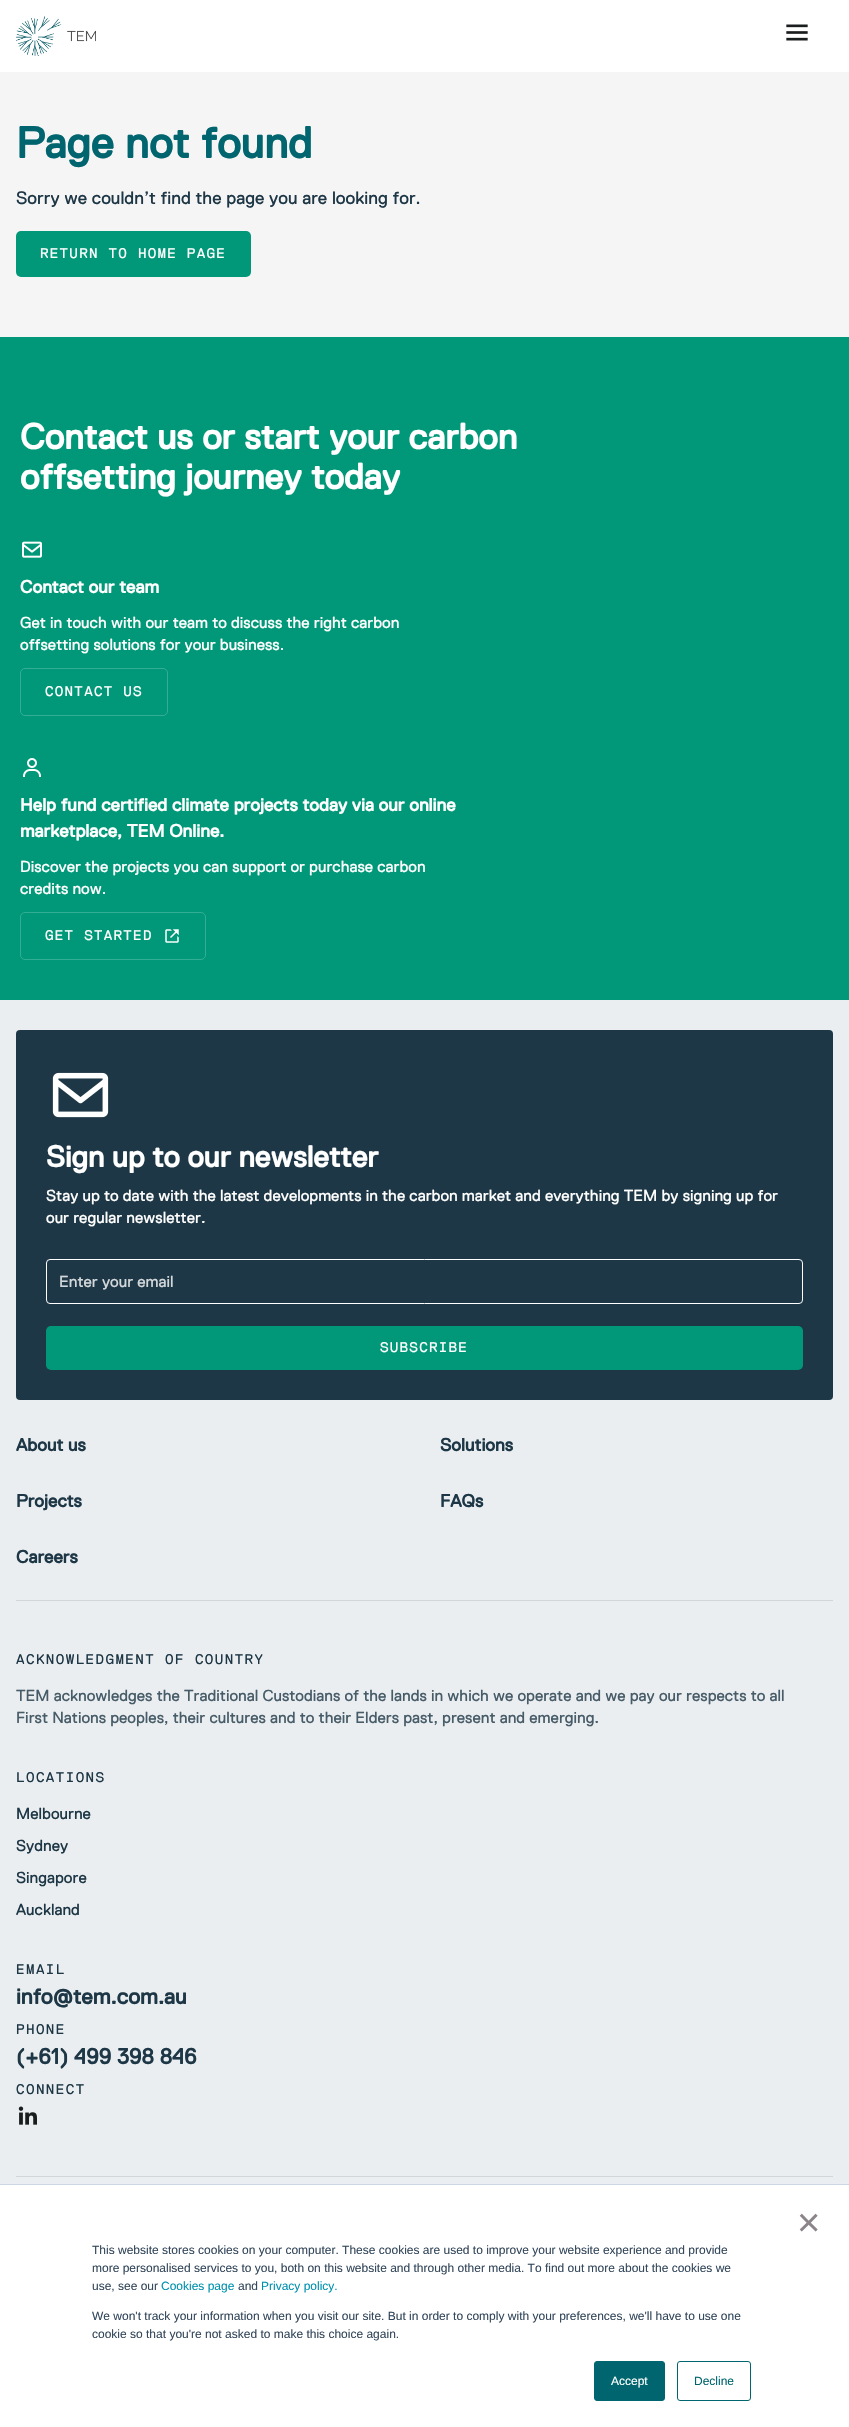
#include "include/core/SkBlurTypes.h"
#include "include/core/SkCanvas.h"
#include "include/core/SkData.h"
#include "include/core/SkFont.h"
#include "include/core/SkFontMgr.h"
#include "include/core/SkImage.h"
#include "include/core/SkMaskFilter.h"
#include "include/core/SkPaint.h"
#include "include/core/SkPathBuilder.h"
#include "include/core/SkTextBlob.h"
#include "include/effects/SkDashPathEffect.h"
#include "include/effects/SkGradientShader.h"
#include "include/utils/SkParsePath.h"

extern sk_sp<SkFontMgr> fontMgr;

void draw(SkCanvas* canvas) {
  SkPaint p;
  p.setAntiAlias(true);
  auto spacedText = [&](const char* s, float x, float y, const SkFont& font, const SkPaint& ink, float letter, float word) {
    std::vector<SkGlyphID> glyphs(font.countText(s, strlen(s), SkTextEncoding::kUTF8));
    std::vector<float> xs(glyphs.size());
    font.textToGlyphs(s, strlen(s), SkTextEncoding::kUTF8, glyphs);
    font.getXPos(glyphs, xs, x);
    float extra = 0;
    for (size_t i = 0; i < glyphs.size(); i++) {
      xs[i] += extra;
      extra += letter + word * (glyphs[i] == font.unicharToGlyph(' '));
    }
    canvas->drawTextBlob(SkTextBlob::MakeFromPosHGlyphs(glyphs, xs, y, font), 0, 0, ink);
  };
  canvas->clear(SkColorSetRGB(246, 245, 245));
  p.setColor(SK_ColorWHITE);
  canvas->drawRect(SkRect::MakeLTRB(0, 0, 849, 72), p);
  canvas->drawImageRect(SkImages::DeferredFromEncodedData(SkData::MakeFromFileName("images/1.png")), SkRect::MakeLTRB(16, 16, 96, 56), SkSamplingOptions());
  canvas->drawImageRect(SkImages::DeferredFromEncodedData(SkData::MakeFromFileName("images/2.png")), SkRect::MakeLTRB(786, 24, 808, 41), SkSamplingOptions());
  p.setColor(SkColorSetRGB(0, 152, 120));
  canvas->drawRoundRect(SkRect::MakeLTRB(16, 231, 251, 277), 5, 5, p);
  canvas->drawRect(SkRect::MakeLTRB(0, 337, 849, 1000), p);
  canvas->drawImageRect(SkImages::DeferredFromEncodedData(SkData::MakeFromFileName("images/3.png")), SkRect::MakeLTRB(22, 541, 42, 558), SkSamplingOptions());
  p.setStyle(SkPaint::kStroke_Style);
  p.setStrokeWidth(1);
  p.setColor(SkColorSetRGB(51, 173, 147));
  canvas->drawRoundRect(SkRect::MakeLTRB(20.5f, 668.5f, 167.5f, 715.5f), 4.5f, 4.5f, p);
  canvas->drawImageRect(SkImages::DeferredFromEncodedData(SkData::MakeFromFileName("images/4.png")), SkRect::MakeLTRB(23, 758, 41, 777), SkSamplingOptions());
  canvas->drawRoundRect(SkRect::MakeLTRB(20.5f, 912.5f, 205.5f, 959.5f), 4.5f, 4.5f, p);
  canvas->drawImageRect(SkImages::DeferredFromEncodedData(SkData::MakeFromFileName("images/5.png")), SkRect::MakeLTRB(165, 929, 179, 943), SkSamplingOptions());
  p.setStyle(SkPaint::kFill_Style);
  p.setColor(SkColorSetRGB(234, 238, 240));
  canvas->drawRect(SkRect::MakeLTRB(0, 1000, 849, 2184), p);
  p.setColor(SkColorSetRGB(30, 55, 70));
  canvas->drawRoundRect(SkRect::MakeLTRB(16, 1030, 833, 1400), 4, 4, p);
  canvas->drawImageRect(SkImages::DeferredFromEncodedData(SkData::MakeFromFileName("images/6.png")), SkRect::MakeLTRB(52, 1072, 109, 1118), SkSamplingOptions());
  p.setStyle(SkPaint::kStroke_Style);
  p.setColor(SK_ColorWHITE);
  canvas->drawRoundRect(SkRect::MakeLTRB(46.5f, 1259.5f, 802.5f, 1303.5f), 3.5f, 3.5f, p);
  p.setStyle(SkPaint::kFill_Style);
  p.setColor(SkColorSetRGB(0, 152, 120));
  canvas->drawRoundRect(SkRect::MakeLTRB(46, 1326, 803, 1370), 5, 5, p);
  p.setColor(SkColorSetRGB(211, 214, 216));
  canvas->drawRect(SkRect::MakeLTRB(16, 1600, 833, 1601), p);
  canvas->drawImageRect(SkImages::DeferredFromEncodedData(SkData::MakeFromFileName("images/7.png")), SkRect::MakeLTRB(18, 2106, 37, 2125), SkSamplingOptions());
  canvas->drawRect(SkRect::MakeLTRB(16, 2176, 833, 2177), p);
  p.setColor(SkColorSetRGB(234, 240, 246));
  p.setMaskFilter(SkMaskFilter::MakeBlur(kNormal_SkBlurStyle, 1.5f));
  canvas->drawRect(SkRect::MakeLTRB(0, 2183, 849, 2426), p);
  p.setMaskFilter(nullptr);
  p.setColor(SK_ColorWHITE);
  canvas->drawRect(SkRect::MakeLTRB(0, 2185, 849, 2427), p);
  p.setColor(SkColorSetRGB(203, 214, 226));
  canvas->drawRect(SkRect::MakeLTRB(0, 2184, 849, 2185), p);
  p.setColor(SkColorSetRGB(0, 101, 110));
  canvas->drawRoundRect(SkRect::MakeLTRB(594.5f, 2361.5f, 664.5f, 2400.5f), 2.5f, 2.5f, p);
  p.setStyle(SkPaint::kStroke_Style);
  canvas->drawRoundRect(SkRect::MakeLTRB(594.5f, 2361.5f, 664.5f, 2400.5f), 2.5f, 2.5f, p);
  canvas->drawRoundRect(SkRect::MakeLTRB(677.5f, 2361.5f, 750.5f, 2400.5f), 2.5f, 2.5f, p);
  SkFont font1(fontMgr->matchFamilyStyle("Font", SkFontStyle::Bold()), 44);
  font1.setSubpixel(true);
  p.setStyle(SkPaint::kFill_Style);
  canvas->drawString("Page not found", 16, 158, font1, p);
  SkFont font2(fontMgr->matchFamilyStyle("Font", SkFontStyle::Normal()), 18);
  font2.setSubpixel(true);
  p.setColor(SkColorSetRGB(30, 55, 70));
  canvas->drawString("Sorry we couldn’t find the page you are looking for.", 16, 204, font2, p);
  SkFont font3(fontMgr->matchFamilyStyle("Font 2", SkFontStyle::Normal()), 14);
  font3.setSubpixel(true);
  p.setColor(SK_ColorWHITE);
  spacedText("RETURN TO HOME PAGE", 40, 258, font3, p, 1.25f, 0);
  SkFont font4(fontMgr->matchFamilyStyle("Font", SkFontStyle::Bold()), 36);
  font4.setSubpixel(true);
  canvas->drawString("Contact us or start your carbon", 20, 449, font4, p);
  canvas->drawString("offsetting journey today", 20, 489, font4, p);
  SkFont font5(fontMgr->matchFamilyStyle("Font", SkFontStyle::Bold()), 18);
  font5.setSubpixel(true);
  canvas->drawString("Contact our team", 20, 593, font5, p);
  SkFont font6(fontMgr->matchFamilyStyle("Font", SkFontStyle::Normal()), 16);
  font6.setSubpixel(true);
  canvas->drawString("Get in touch with our team to discuss the right carbon", 20, 628, font6, p);
  canvas->drawString("offsetting solutions for your business.", 20, 650, font6, p);
  spacedText("CONTACT US", 45, 696, font3, p, 1.25f, 0);
  canvas->drawString("Help fund certified climate projects today via our online", 20, 811, font5, p);
  canvas->drawString("marketplace, TEM Online.", 20, 837, font5, p);
  canvas->drawString("Discover the projects you can support or purchase carbon", 20, 872, font6, p);
  canvas->drawString("credits now.", 20, 894, font6, p);
  spacedText("GET STARTED", 45, 940, font3, p, 1.25f, 0);
  SkFont font7(fontMgr->matchFamilyStyle("Font", SkFontStyle::Bold()), 30);
  font7.setSubpixel(true);
  canvas->drawString("Sign up to our newsletter", 46, 1167, font7, p);
  canvas->drawString("Stay up to date with the latest developments in the carbon market and everything TEM by signing up for", 46, 1201, font6, p);
  canvas->drawString("our regular newsletter.", 46, 1223, font6, p);
  p.setColor(SkColorSetRGB(210, 215, 218));
  canvas->drawString("Enter your email", 59, 1287, font6, p);
  p.setColor(SK_ColorWHITE);
  spacedText("SUBSCRIBE", 380, 1352, font3, p, 1.25f, 0);
  p.setColor(SkColorSetRGB(30, 55, 70));
  canvas->drawString("About us", 16, 1451, font5, p);
  canvas->drawString("Solutions", 440, 1451, font5, p);
  canvas->drawString("Projects", 16, 1507, font5, p);
  canvas->drawString("FAQs", 440, 1507, font5, p);
  canvas->drawString("Careers", 16, 1563, font5, p);
  spacedText("ACKNOWLEDGMENT OF COUNTRY", 16, 1664, font3, p, 1.4f, 0);
  p.setColor(SkColorSetRGB(71, 92, 104));
  canvas->drawString("TEM acknowledges the Traditional Custodians of the lands in which we operate and we pay our respects to all", 16, 1701, font6, p);
  canvas->drawString("First Nations peoples, their cultures and to their Elders past, present and emerging.", 16, 1723, font6, p);
  p.setColor(SkColorSetRGB(30, 55, 70));
  spacedText("LOCATIONS", 16, 1782, font3, p, 1.4f, 0);
  canvas->drawString("Melbourne", 16, 1819, font6, p);
  canvas->drawString("Sydney", 16, 1851, font6, p);
  canvas->drawString("Singapore", 16, 1883, font6, p);
  canvas->drawString("Auckland", 16, 1915, font6, p);
  spacedText("EMAIL", 16, 1974, font3, p, 1.4f, 0);
  SkFont font8(fontMgr->matchFamilyStyle("Font", SkFontStyle::Bold()), 22);
  font8.setSubpixel(true);
  canvas->drawString("info@tem.com.au", 16, 2004, font8, p);
  spacedText("PHONE", 16, 2034, font3, p, 1.4f, 0);
  canvas->drawString("(+61) 499 398 846", 16, 2064, font8, p);
  spacedText("CONNECT", 16, 2094, font3, p, 1.4f, 0);
  SkFont font9(fontMgr->matchFamilyStyle("Liberation Sans", SkFontStyle::Normal()), 40);
  font9.setSubpixel(true);
  p.setColor(SkColorSetRGB(139, 133, 137));
  canvas->drawString("×", 797, 2236, font9, p);
  SkFont font10(fontMgr->matchFamilyStyle("Liberation Sans", SkFontStyle::Normal()), 12);
  font10.setSubpixel(true);
  p.setColor(SkColorSetRGB(51, 71, 91));
  canvas->drawString("This website stores cookies on your computer. These cookies are used to improve your website experience and provide", 92, 2254, font10, p);
  canvas->drawString("more personalised services to you, both on this website and through other media. To find out more about the cookies we", 92, 2272, font10, p);
  canvas->drawString("use, see our", 92, 2290, font10, p);
  p.setColor(SkColorSetRGB(0, 145, 174));
  canvas->drawString("Cookies page", 161, 2290, font10, p);
  p.setColor(SkColorSetRGB(51, 71, 91));
  canvas->drawString("and", 238, 2290, font10, p);
  p.setColor(SkColorSetRGB(0, 145, 174));
  canvas->drawString("Privacy policy.", 261, 2290, font10, p);
  p.setColor(SkColorSetRGB(51, 71, 91));
  canvas->drawString("We won't track your information when you visit our site. But in order to comply with your preferences, we'll have to use one", 92, 2320, font10, p);
  canvas->drawString("cookie so that you're not asked to make this choice again.", 92, 2338, font10, p);
  p.setColor(SK_ColorWHITE);
  canvas->drawString("Accept", 611, 2385, font10, p);
  p.setColor(SkColorSetRGB(0, 101, 110));
  canvas->drawString("Decline", 694, 2385, font10, p);
}
